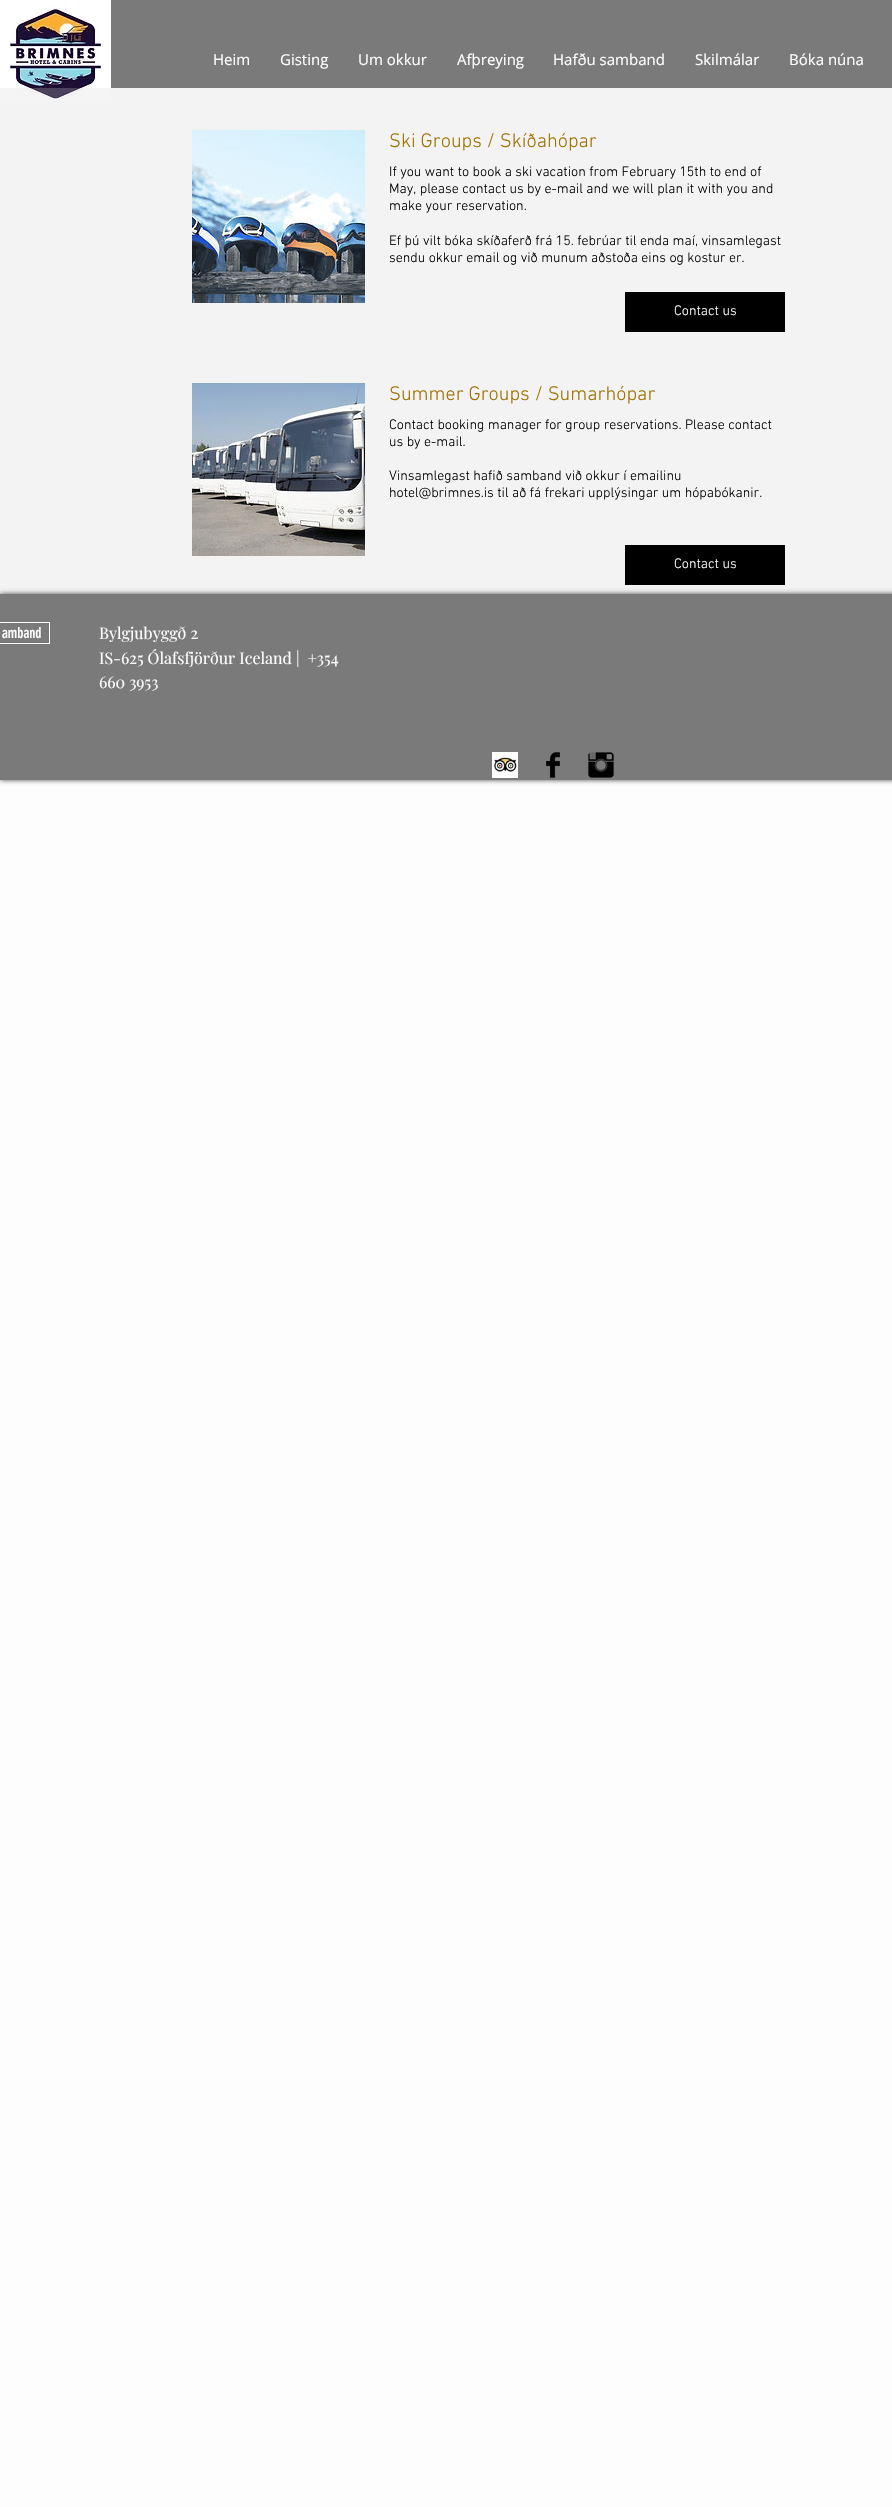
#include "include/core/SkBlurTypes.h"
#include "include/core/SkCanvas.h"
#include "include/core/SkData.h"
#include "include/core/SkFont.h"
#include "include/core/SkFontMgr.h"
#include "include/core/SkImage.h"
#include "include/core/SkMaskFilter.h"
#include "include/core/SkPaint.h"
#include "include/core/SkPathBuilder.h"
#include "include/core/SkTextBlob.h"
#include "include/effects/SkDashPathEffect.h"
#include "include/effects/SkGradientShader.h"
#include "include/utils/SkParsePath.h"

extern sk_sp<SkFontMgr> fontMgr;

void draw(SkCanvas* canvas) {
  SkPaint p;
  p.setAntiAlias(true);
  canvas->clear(SkColorSetRGB(254, 253, 253));
  p.setColor(SkColorSetRGB(123, 122, 122));
  canvas->drawRect(SkRect::MakeLTRB(111, 0, 892, 88), p);
  canvas->drawImageRect(SkImages::DeferredFromEncodedData(SkData::MakeFromFileName("images/1.png")), SkRect::MakeLTRB(0, 0, 111, 100), SkSamplingOptions());
  p.setColor(SkColorSetARGB(64, 214, 214, 214));
  canvas->drawRect(SkRect::MakeLTRB(0, 88, 892, 594), p);
  canvas->drawImageRect(SkImages::DeferredFromEncodedData(SkData::MakeFromFileName("images/2.png")), SkRect::MakeLTRB(192, 130, 365, 303), SkSamplingOptions());
  p.setColor(SK_ColorBLACK);
  canvas->drawRect(SkRect::MakeLTRB(625, 292, 785, 332), p);
  canvas->drawImageRect(SkImages::DeferredFromEncodedData(SkData::MakeFromFileName("images/3.png")), SkRect::MakeLTRB(192, 383, 365, 556), SkSamplingOptions());
  canvas->drawRect(SkRect::MakeLTRB(625, 545, 785, 585), p);
  p.setColor(SkColorSetARGB(179, 0, 0, 0));
  p.setMaskFilter(SkMaskFilter::MakeBlur(kNormal_SkBlurStyle, 2.5f));
  canvas->drawRect(SkRect::MakeLTRB(0, 594, 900, 780), p);
  p.setMaskFilter(nullptr);
  p.setColor(SkColorSetRGB(123, 122, 122));
  canvas->drawRect(SkRect::MakeLTRB(0, 594, 892, 780), p);
  p.setStyle(SkPaint::kStroke_Style);
  p.setStrokeWidth(1);
  p.setColor(SK_ColorWHITE);
  canvas->drawRect(SkRect::MakeLTRB(-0.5f, 622.5f, 49.5f, 643.5f), p);
  canvas->drawImageRect(SkImages::DeferredFromEncodedData(SkData::MakeFromFileName("images/4.png")), SkRect::MakeLTRB(492, 752, 518, 778), SkSamplingOptions());
  canvas->drawImageRect(SkImages::DeferredFromEncodedData(SkData::MakeFromFileName("images/5.png")), SkRect::MakeLTRB(546, 752, 560, 778), SkSamplingOptions());
  canvas->drawImageRect(SkImages::DeferredFromEncodedData(SkData::MakeFromFileName("images/6.png")), SkRect::MakeLTRB(588, 752, 614, 778), SkSamplingOptions());
  SkFont font1(fontMgr->matchFamilyStyle("Open Sans", SkFontStyle::Normal()), 15);
  font1.setSubpixel(true);
  p.setStyle(SkPaint::kFill_Style);
  canvas->drawString("Heim", 213, 65, font1, p);
  canvas->drawString("Gisting", 280, 65, font1, p);
  canvas->drawString("Um okkur", 358, 65, font1, p);
  canvas->drawString("Afþreying", 457, 65, font1, p);
  canvas->drawString("Hafðu samband", 553, 65, font1, p);
  canvas->drawString("Skilmálar", 695, 65, font1, p);
  canvas->drawString("Bóka núna", 789, 65, font1, p);
  SkFont font2(fontMgr->matchFamilyStyle("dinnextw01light", SkFontStyle(300, SkFontStyle::kNormal_Width, SkFontStyle::kUpright_Slant)), 20);
  font2.setSubpixel(true);
  p.setColor(SkColorSetRGB(159, 114, 0));
  canvas->drawString("Ski Groups / Skíðahópar", 389, 147, font2, p);
  SkFont font3(fontMgr->matchFamilyStyle("dinnextw01light", SkFontStyle(300, SkFontStyle::kNormal_Width, SkFontStyle::kUpright_Slant)), 14);
  font3.setSubpixel(true);
  p.setColor(SK_ColorBLACK);
  canvas->drawString("If you want to book a ski vacation from February 15th to end of", 389, 176, font3, p);
  canvas->drawString("May, please contact us by e-mail and we will plan it with you and", 389, 193, font3, p);
  canvas->drawString("make your reservation.", 389, 210, font3, p);
  canvas->drawString("Ef þú vilt bóka skíðaferð frá 15. febrúar til enda maí, vinsamlegast", 389, 245, font3, p);
  canvas->drawString("sendu okkur email og við munum aðstoða eins og kostur er.", 389, 262, font3, p);
  p.setColor(SK_ColorWHITE);
  canvas->drawString("Contact us", 674, 315, font3, p);
  p.setColor(SkColorSetRGB(159, 114, 0));
  canvas->drawString("Summer Groups / Sumarhópar", 389, 400, font2, p);
  p.setColor(SK_ColorBLACK);
  canvas->drawString("Contact booking manager for group reservations. Please contact", 389, 429, font3, p);
  canvas->drawString("us by e-mail.", 389, 446, font3, p);
  canvas->drawString("Vinsamlegast hafið samband við okkur í emailinu", 389, 480, font3, p);
  canvas->drawString("hotel@brimnes.is til að fá frekari upplýsingar um hópabókanir.", 389, 497, font3, p);
  p.setColor(SK_ColorWHITE);
  canvas->drawString("Contact us", 674, 568, font3, p);
  SkFont font4(fontMgr->matchFamilyStyle("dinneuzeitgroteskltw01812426", SkFontStyle::Normal()), 15);
  font4.setSubpixel(true);
  canvas->drawString("amband", 2, 638, font4, p);
  SkFont font5(fontMgr->matchFamilyStyle("Playfair Display", SkFontStyle::Normal()), 16);
  font5.setSubpixel(true);
  canvas->drawString("Bylgjubyggð 2", 99, 639, font5, p);
  canvas->drawString("IS-625 Ólafsfjörður Iceland |  +354", 99, 664, font5, p);
  canvas->drawString("660 3953", 99, 688, font5, p);
}
